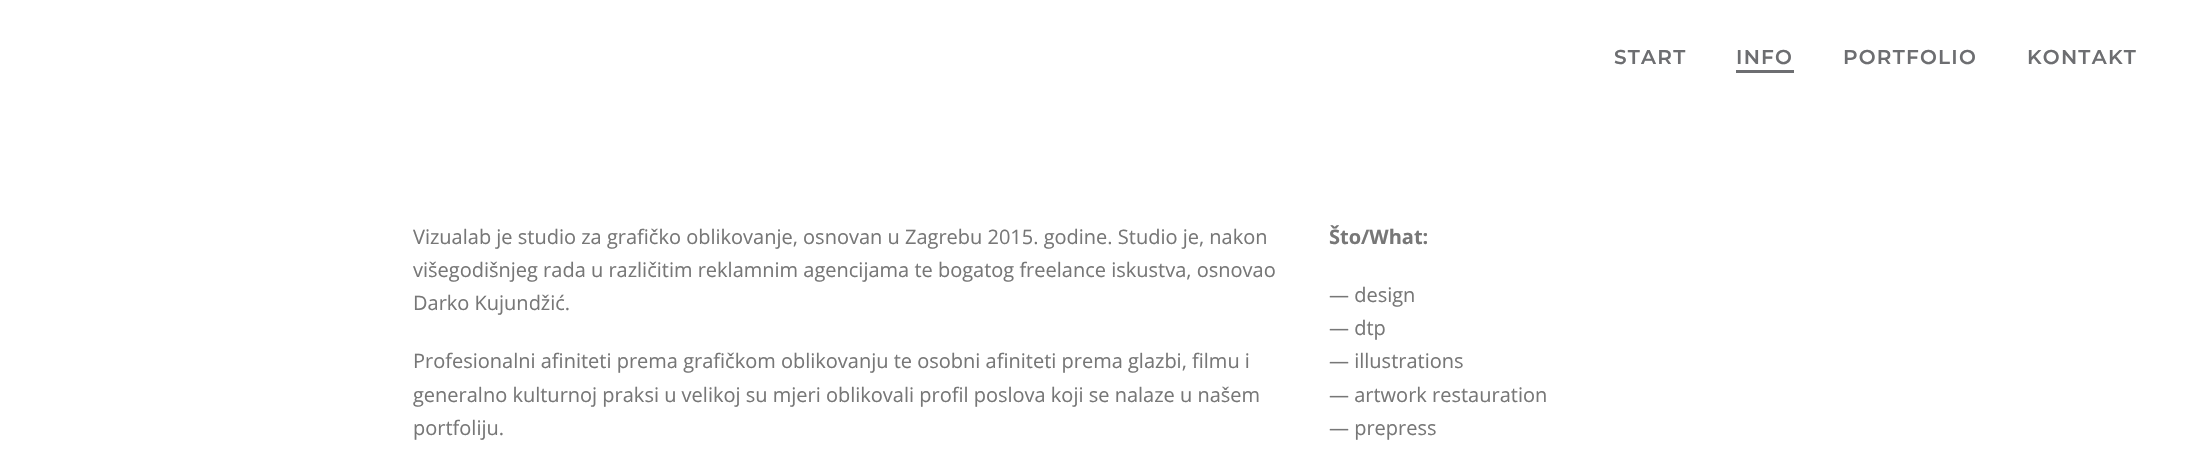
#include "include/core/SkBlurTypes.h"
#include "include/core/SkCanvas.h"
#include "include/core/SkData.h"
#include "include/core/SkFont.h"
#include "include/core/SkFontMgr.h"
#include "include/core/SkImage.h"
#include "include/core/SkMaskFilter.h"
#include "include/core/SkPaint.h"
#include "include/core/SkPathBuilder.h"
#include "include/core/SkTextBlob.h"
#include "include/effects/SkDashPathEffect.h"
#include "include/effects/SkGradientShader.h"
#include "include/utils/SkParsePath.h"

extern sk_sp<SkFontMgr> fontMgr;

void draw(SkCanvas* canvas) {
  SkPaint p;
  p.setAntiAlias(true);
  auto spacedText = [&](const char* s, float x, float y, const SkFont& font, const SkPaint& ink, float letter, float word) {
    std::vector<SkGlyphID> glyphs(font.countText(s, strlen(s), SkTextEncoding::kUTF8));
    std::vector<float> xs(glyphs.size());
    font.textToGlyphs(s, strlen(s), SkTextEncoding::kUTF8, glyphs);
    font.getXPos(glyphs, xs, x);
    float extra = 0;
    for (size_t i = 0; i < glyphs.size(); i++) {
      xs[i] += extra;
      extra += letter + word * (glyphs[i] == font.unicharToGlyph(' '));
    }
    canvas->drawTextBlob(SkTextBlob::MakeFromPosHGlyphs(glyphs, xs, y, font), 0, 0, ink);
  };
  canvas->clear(SK_ColorWHITE);
  p.setColor(SkColorSetRGB(109, 110, 113));
  canvas->drawRect(SkRect::MakeLTRB(1736, 70, 1794, 73), p);
  SkFont font1(fontMgr->matchFamilyStyle("Montserrat", SkFontStyle(600, SkFontStyle::kNormal_Width, SkFontStyle::kUpright_Slant)), 20);
  font1.setSubpixel(true);
  spacedText("START", 1614, 64, font1, p, 1.25f, 0);
  spacedText("INFO", 1736, 64, font1, p, 1.25f, 0);
  spacedText("PORTFOLIO", 1843, 64, font1, p, 1.25f, 0);
  spacedText("KONTAKT", 2027, 64, font1, p, 1.25f, 0);
  SkFont font2(fontMgr->matchFamilyStyle("Open Sans", SkFontStyle::Normal()), 20);
  font2.setSubpixel(true);
  p.setColor(SkColorSetRGB(119, 119, 119));
  canvas->drawString("Vizualab je studio za grafičko oblikovanje, osnovan u Zagrebu 2015. godine. Studio je, nakon", 413, 244, font2, p);
  canvas->drawString("višegodišnjeg rada u različitim reklamnim agencijama te bogatog freelance iskustva, osnovao", 413, 277, font2, p);
  canvas->drawString("Darko Kujundžić.", 413, 310, font2, p);
  canvas->drawString("Profesionalni afiniteti prema grafičkom oblikovanju te osobni afiniteti prema glazbi, filmu i", 413, 368, font2, p);
  canvas->drawString("generalno kulturnoj praksi u velikoj su mjeri oblikovali profil poslova koji se nalaze u našem", 413, 402, font2, p);
  canvas->drawString("portfoliju.", 413, 435, font2, p);
  SkFont font3(fontMgr->matchFamilyStyle("Open Sans", SkFontStyle::Bold()), 20);
  font3.setSubpixel(true);
  canvas->drawString("Što/What:", 1329, 244, font3, p);
  canvas->drawString("— design", 1329, 302, font2, p);
  canvas->drawString("— dtp", 1329, 335, font2, p);
  canvas->drawString("— illustrations", 1329, 368, font2, p);
  canvas->drawString("— artwork restauration", 1329, 402, font2, p);
  canvas->drawString("— prepress", 1329, 435, font2, p);
}
